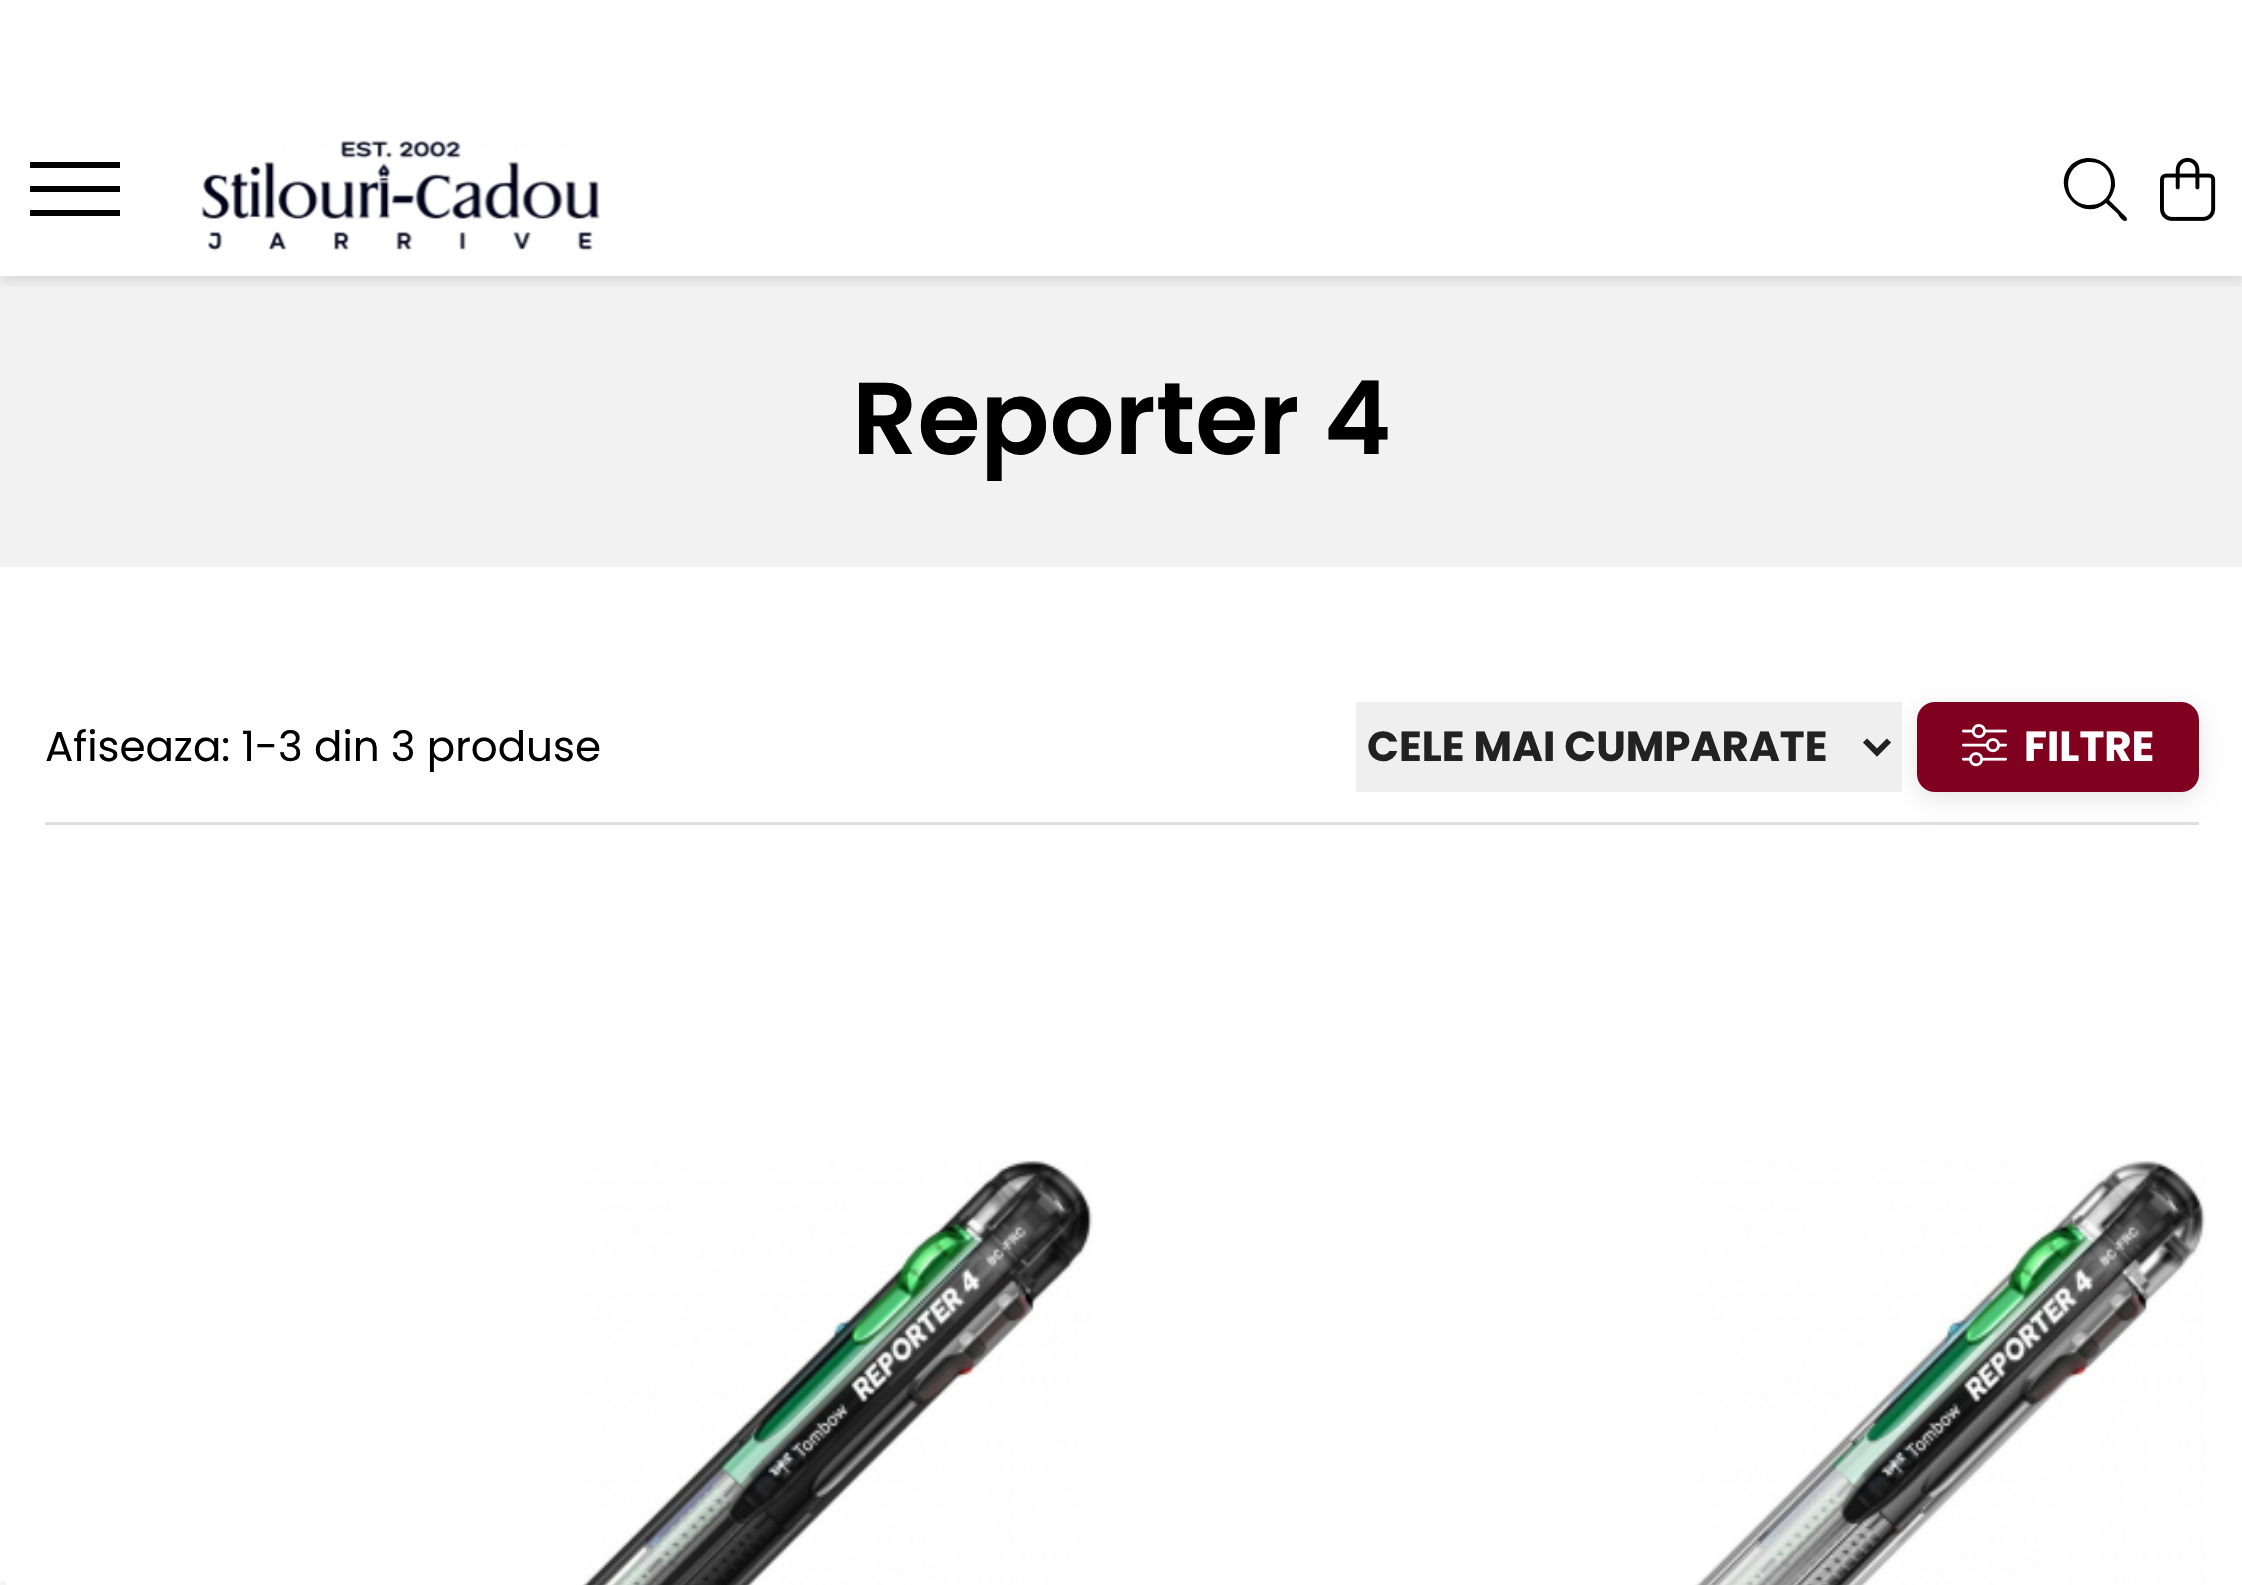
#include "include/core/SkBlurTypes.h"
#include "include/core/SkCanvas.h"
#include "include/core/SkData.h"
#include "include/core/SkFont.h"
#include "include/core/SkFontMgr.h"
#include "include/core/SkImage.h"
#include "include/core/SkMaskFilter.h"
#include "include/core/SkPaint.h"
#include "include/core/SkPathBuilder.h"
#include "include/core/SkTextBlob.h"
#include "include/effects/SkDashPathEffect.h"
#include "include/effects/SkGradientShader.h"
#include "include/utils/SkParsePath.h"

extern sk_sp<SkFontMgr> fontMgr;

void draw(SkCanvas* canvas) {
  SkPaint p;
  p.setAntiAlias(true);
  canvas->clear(SK_ColorWHITE);
  p.setColor(SkColorSetRGB(242, 242, 242));
  canvas->drawRect(SkRect::MakeLTRB(0, 276, 2242, 567), p);
  canvas->save();
  canvas->clipRect(SkRect::MakeLTRB(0, 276, 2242, 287));
  p.setColor(SkColorSetARGB(26, 0, 0, 0));
  p.setMaskFilter(SkMaskFilter::MakeBlur(kNormal_SkBlurStyle, 6));
  canvas->drawRect(SkRect::MakeLTRB(0, 6, 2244, 282), p);
  p.setMaskFilter(nullptr);
  canvas->restore();
  p.setColor(SK_ColorBLACK);
  canvas->drawRect(SkRect::MakeLTRB(30, 186, 120, 192), p);
  canvas->drawRect(SkRect::MakeLTRB(30, 162, 120, 168), p);
  canvas->drawRect(SkRect::MakeLTRB(30, 210, 120, 216), p);
  canvas->drawImageRect(SkImages::DeferredFromEncodedData(SkData::MakeFromFileName("images/1.png")), SkRect::MakeLTRB(201, 140, 600, 251), SkSamplingOptions());
  canvas->drawPath(SkPathBuilder().moveTo(2109, 200).cubicTo(2112, 196, 2114, 191, 2115, 186).cubicTo(2117, 162, 2088, 149, 2071, 165).cubicTo(2049, 188, 2082, 224, 2106, 203).lineTo(2118, 214).cubicTo(2118, 215, 2124, 224, 2127, 220).cubicTo(2128, 217, 2121, 213, 2121, 212).close().moveTo(2090, 205).cubicTo(2061, 205, 2061, 162, 2090, 162).cubicTo(2118, 162, 2118, 205, 2090, 205).close().detach(), p);
  canvas->drawImageRect(SkImages::DeferredFromEncodedData(SkData::MakeFromFileName("images/2.png")), SkRect::MakeLTRB(2160, 157, 2216, 221), SkSamplingOptions());
  p.setColor(SkColorSetRGB(223, 223, 223));
  canvas->drawRect(SkRect::MakeLTRB(45, 822, 2199, 825), p);
  p.setColor(SkColorSetARGB(26, 0, 0, 0));
  p.setMaskFilter(SkMaskFilter::MakeBlur(kNormal_SkBlurStyle, 12));
  canvas->drawRoundRect(SkRect::MakeLTRB(1917, 708, 2199, 798), 18, 18, p);
  p.setMaskFilter(nullptr);
  p.setColor(SkColorSetRGB(239, 239, 239));
  canvas->drawRect(SkRect::MakeLTRB(1356, 702, 1902, 792), p);
  p.setStyle(SkPaint::kStroke_Style);
  p.setStrokeWidth(6);
  p.setColor(SkColorSetRGB(34, 34, 34));
  canvas->drawPath(SkPathBuilder().moveTo(1865, 740.5f).lineTo(1877, 752.5f).lineTo(1889, 740.5f).detach(), p);
  p.setStyle(SkPaint::kFill_Style);
  p.setColor(SkColorSetRGB(128, 0, 32));
  canvas->drawRoundRect(SkRect::MakeLTRB(1917, 702, 2199, 792), 18, 18, p);
  canvas->drawImageRect(SkImages::DeferredFromEncodedData(SkData::MakeFromFileName("images/3.png")), SkRect::MakeLTRB(1962, 724, 2007, 767), SkSamplingOptions());
  canvas->drawImageRect(SkImages::DeferredFromEncodedData(SkData::MakeFromFileName("images/4.png")), SkRect::MakeLTRB(582, 1160, 1093, 1585), SkSamplingOptions());
  canvas->drawImageRect(SkImages::DeferredFromEncodedData(SkData::MakeFromFileName("images/5.png")), SkRect::MakeLTRB(1695, 1160, 2206, 1585), SkSamplingOptions());
  p.setColor(SkColorSetRGB(245, 245, 245));
  canvas->drawRect(SkRect::MakeLTRB(0, 1581, 6, 1585), p);
  SkFont font1(fontMgr->matchFamilyStyle("Poppins", SkFontStyle(600, SkFontStyle::kNormal_Width, SkFontStyle::kUpright_Slant)), 102);
  font1.setSubpixel(true);
  p.setColor(SK_ColorBLACK);
  canvas->drawString("Reporter 4", 852, 454, font1, p);
  SkFont font2(fontMgr->matchFamilyStyle("Poppins", SkFontStyle::Normal()), 42);
  font2.setSubpixel(true);
  canvas->drawString("Afiseaza: 1-3 din 3 produse", 45, 761, font2, p);
  SkFont font3(fontMgr->matchFamilyStyle("Poppins", SkFontStyle::Bold()), 42);
  font3.setSubpixel(true);
  p.setColor(SkColorSetRGB(34, 34, 34));
  canvas->drawString("CELE MAI CUMPARATE", 1367, 761, font3, p);
  p.setColor(SK_ColorWHITE);
  canvas->drawString("FILTRE", 2024, 761, font3, p);
}
